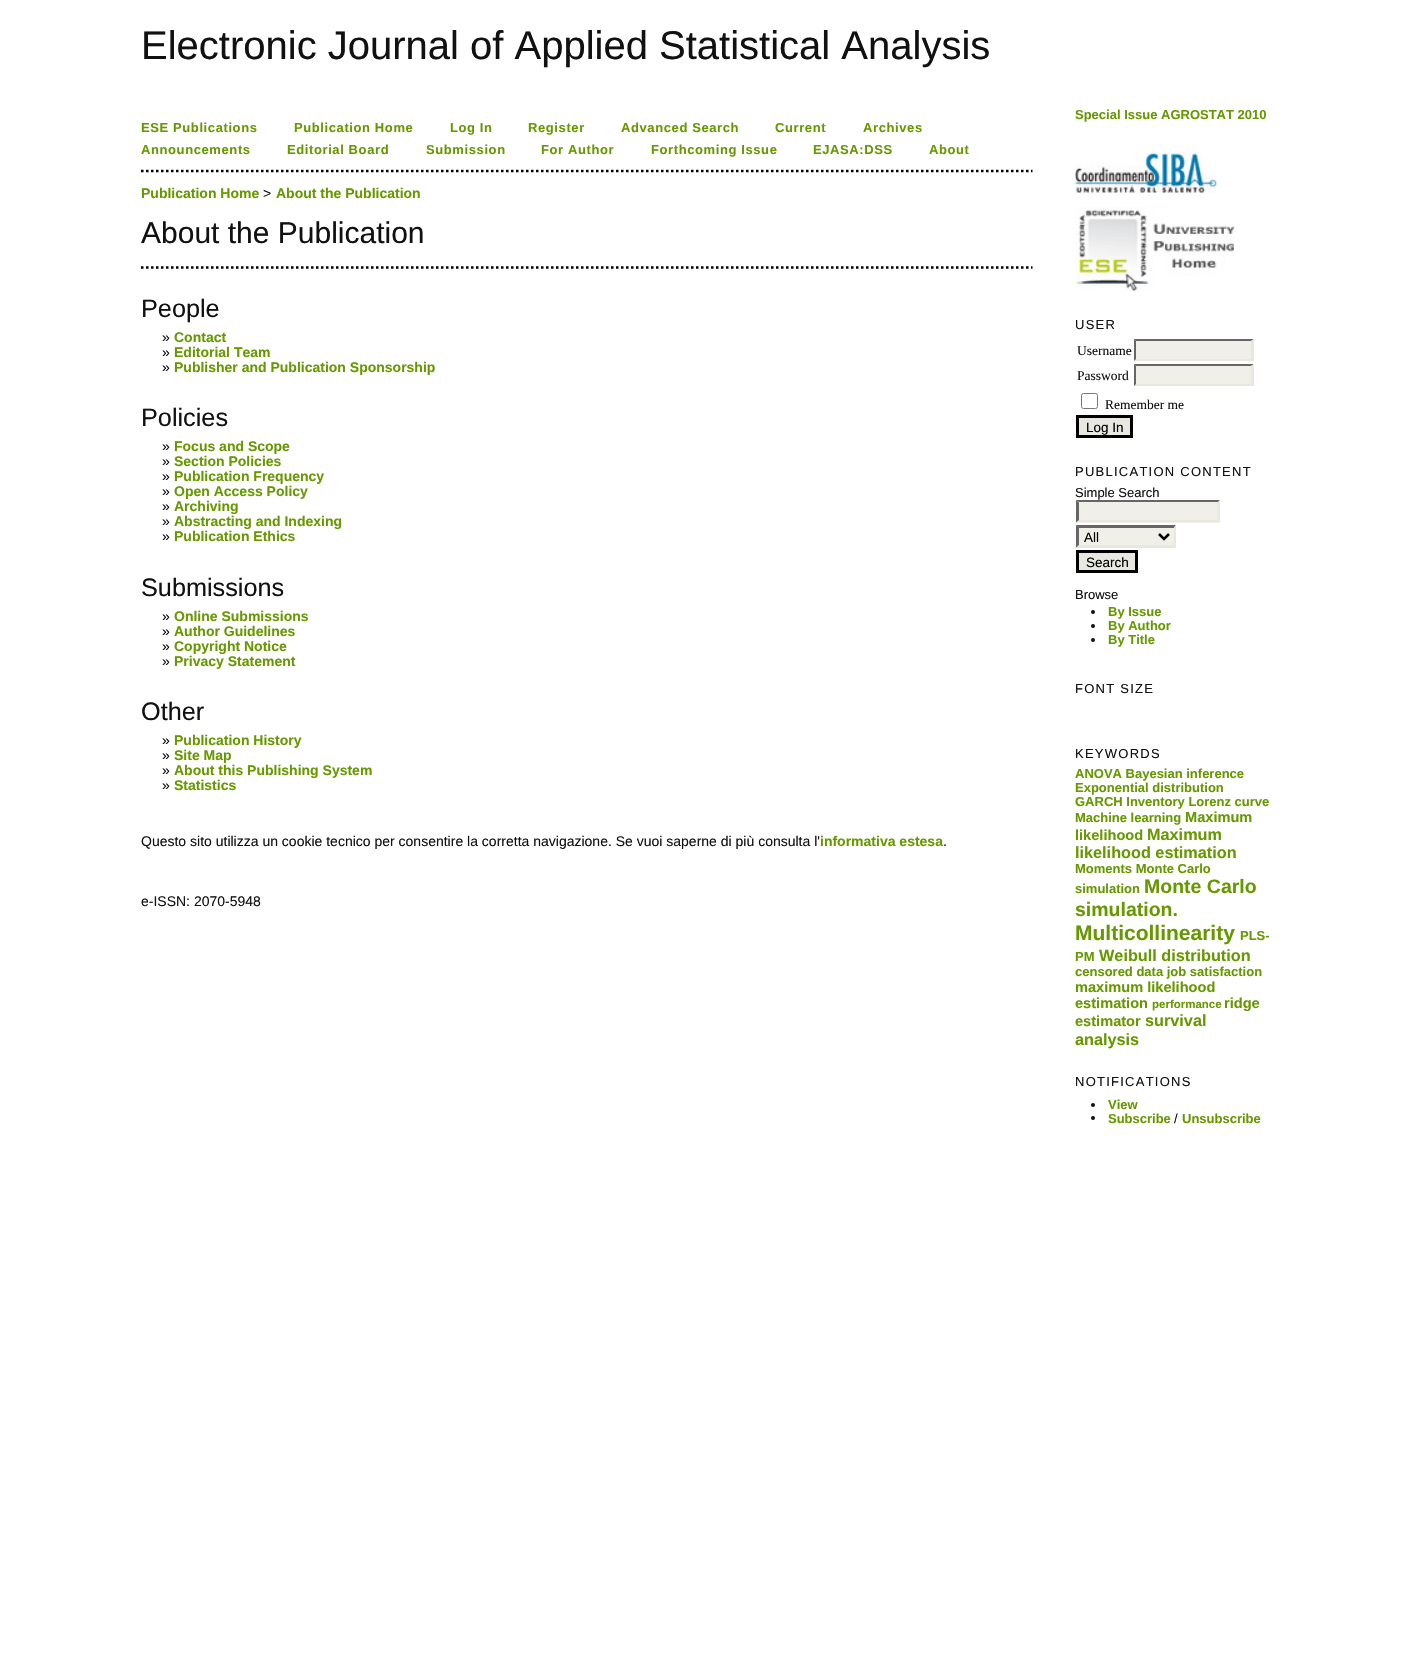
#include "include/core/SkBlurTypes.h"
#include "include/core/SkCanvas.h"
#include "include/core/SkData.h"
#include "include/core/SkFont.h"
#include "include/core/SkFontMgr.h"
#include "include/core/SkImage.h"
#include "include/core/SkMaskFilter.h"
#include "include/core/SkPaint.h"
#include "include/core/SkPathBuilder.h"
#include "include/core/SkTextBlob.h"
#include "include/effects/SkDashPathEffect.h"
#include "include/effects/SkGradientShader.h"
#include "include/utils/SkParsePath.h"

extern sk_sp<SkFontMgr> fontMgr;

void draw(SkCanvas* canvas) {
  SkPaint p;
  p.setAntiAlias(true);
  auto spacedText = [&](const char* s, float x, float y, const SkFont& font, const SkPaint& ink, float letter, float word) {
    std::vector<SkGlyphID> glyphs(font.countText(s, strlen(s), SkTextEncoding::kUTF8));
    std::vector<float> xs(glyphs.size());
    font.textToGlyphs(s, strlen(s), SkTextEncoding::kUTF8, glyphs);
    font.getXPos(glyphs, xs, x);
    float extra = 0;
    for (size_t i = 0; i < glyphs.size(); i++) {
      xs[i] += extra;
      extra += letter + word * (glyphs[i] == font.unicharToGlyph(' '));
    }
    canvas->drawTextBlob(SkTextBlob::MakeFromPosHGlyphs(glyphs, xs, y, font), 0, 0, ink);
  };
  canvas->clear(SK_ColorWHITE);
  p.setStyle(SkPaint::kStroke_Style);
  p.setStrokeWidth(2.5f);
  p.setColor(SK_ColorBLACK);
  p.setPathEffect(SkDashPathEffect::Make({{2.5f, 2.5f}}, 0));
  canvas->drawPath(SkPathBuilder().moveTo(141, 171).lineTo(1032.5f, 171).detach(), p);
  p.setPathEffect(nullptr);
  p.setPathEffect(SkDashPathEffect::Make({{2.5f, 2.5f}}, 0));
  canvas->drawPath(SkPathBuilder().moveTo(141, 267.5f).lineTo(1032.5f, 267.5f).detach(), p);
  p.setPathEffect(nullptr);
  canvas->drawImageRect(SkImages::DeferredFromEncodedData(SkData::MakeFromFileName("images/1.png")), SkRect::MakeLTRB(1075, 153, 1217, 193), SkSamplingOptions());
  canvas->drawImageRect(SkImages::DeferredFromEncodedData(SkData::MakeFromFileName("images/2.png")), SkRect::MakeLTRB(1075, 206, 1235, 292), SkSamplingOptions());
  p.setStyle(SkPaint::kFill_Style);
  p.setColor(SkColorSetRGB(240, 240, 232));
  canvas->drawRect(SkRect::MakeLTRB(1134, 339, 1254, 361), p);
  p.setColor(SkColorSetRGB(102, 102, 102));
  canvas->drawPath(SkPathBuilder().moveTo(1134, 339).lineTo(1254, 339).lineTo(1251, 341).lineTo(1136, 341).close().detach(), p);
  p.setColor(SkColorSetRGB(232, 232, 225));
  canvas->drawPath(SkPathBuilder().moveTo(1254, 339).lineTo(1254, 361).lineTo(1251, 359).lineTo(1251, 341).close().detach(), p);
  canvas->drawPath(SkPathBuilder().moveTo(1254, 361).lineTo(1134, 361).lineTo(1136, 359).lineTo(1251, 359).close().detach(), p);
  p.setColor(SkColorSetRGB(102, 102, 102));
  canvas->drawPath(SkPathBuilder().moveTo(1134, 361).lineTo(1134, 339).lineTo(1136, 341).lineTo(1136, 359).close().detach(), p);
  p.setColor(SkColorSetRGB(240, 240, 232));
  canvas->drawRect(SkRect::MakeLTRB(1134, 364, 1254, 386), p);
  p.setColor(SkColorSetRGB(102, 102, 102));
  canvas->drawPath(SkPathBuilder().moveTo(1134, 364).lineTo(1254, 364).lineTo(1251, 366).lineTo(1136, 366).close().detach(), p);
  p.setColor(SkColorSetRGB(232, 232, 225));
  canvas->drawPath(SkPathBuilder().moveTo(1254, 364).lineTo(1254, 386).lineTo(1251, 384).lineTo(1251, 366).close().detach(), p);
  canvas->drawPath(SkPathBuilder().moveTo(1254, 386).lineTo(1134, 386).lineTo(1136, 384).lineTo(1251, 384).close().detach(), p);
  p.setColor(SkColorSetRGB(102, 102, 102));
  canvas->drawPath(SkPathBuilder().moveTo(1134, 386).lineTo(1134, 364).lineTo(1136, 366).lineTo(1136, 384).close().detach(), p);
  p.setStyle(SkPaint::kStroke_Style);
  p.setStrokeWidth(1);
  p.setColor(SkColorSetRGB(118, 118, 118));
  canvas->drawRoundRect(SkRect::MakeLTRB(1081.5f, 393.5f, 1097.5f, 408.5f), 2, 2, p);
  p.setStyle(SkPaint::kFill_Style);
  p.setColor(SkColorSetRGB(232, 232, 225));
  canvas->drawRect(SkRect::MakeLTRB(1077.5f, 416.5f, 1131.5f, 436.5f), p);
  p.setStyle(SkPaint::kStroke_Style);
  p.setStrokeWidth(3);
  p.setColor(SK_ColorBLACK);
  canvas->drawRect(SkRect::MakeLTRB(1077.5f, 416.5f, 1131.5f, 436.5f), p);
  p.setStyle(SkPaint::kFill_Style);
  p.setColor(SkColorSetRGB(240, 240, 232));
  canvas->drawRect(SkRect::MakeLTRB(1076, 500, 1220, 523), p);
  p.setColor(SkColorSetRGB(102, 102, 102));
  canvas->drawPath(SkPathBuilder().moveTo(1076, 500).lineTo(1220, 500).lineTo(1218, 502).lineTo(1079, 502).close().detach(), p);
  p.setColor(SkColorSetRGB(232, 232, 225));
  canvas->drawPath(SkPathBuilder().moveTo(1220, 500).lineTo(1220, 522.5f).lineTo(1217.5f, 520).lineTo(1217.5f, 502.5f).close().detach(), p);
  canvas->drawPath(SkPathBuilder().moveTo(1220, 522).lineTo(1076, 522).lineTo(1079, 520).lineTo(1218, 520).close().detach(), p);
  p.setColor(SkColorSetRGB(102, 102, 102));
  canvas->drawPath(SkPathBuilder().moveTo(1076, 522.5f).lineTo(1076, 500).lineTo(1079, 502.5f).lineTo(1079, 520).close().detach(), p);
  p.setColor(SkColorSetRGB(240, 240, 232));
  canvas->drawRect(SkRect::MakeLTRB(1076, 525, 1176, 548), p);
  p.setColor(SkColorSetRGB(102, 102, 102));
  canvas->drawPath(SkPathBuilder().moveTo(1076, 525).lineTo(1176, 525).lineTo(1174, 528).lineTo(1079, 528).close().detach(), p);
  p.setColor(SkColorSetRGB(232, 232, 225));
  canvas->drawPath(SkPathBuilder().moveTo(1176, 525).lineTo(1176, 547.5f).lineTo(1174, 545).lineTo(1174, 527.5f).close().detach(), p);
  canvas->drawPath(SkPathBuilder().moveTo(1176, 548).lineTo(1076, 548).lineTo(1079, 545).lineTo(1174, 545).close().detach(), p);
  p.setColor(SkColorSetRGB(102, 102, 102));
  canvas->drawPath(SkPathBuilder().moveTo(1076, 547.5f).lineTo(1076, 525).lineTo(1079, 527.5f).lineTo(1079, 545).close().detach(), p);
  p.setStyle(SkPaint::kStroke_Style);
  p.setStrokeWidth(2.5f);
  p.setColor(SK_ColorBLACK);
  canvas->drawPath(SkPathBuilder().moveTo(1159, 534).lineTo(1164, 539).lineTo(1169, 534).detach(), p);
  p.setStyle(SkPaint::kFill_Style);
  p.setColor(SkColorSetRGB(232, 232, 225));
  canvas->drawRect(SkRect::MakeLTRB(1077.5f, 551.5f, 1136.5f, 571.5f), p);
  p.setStyle(SkPaint::kStroke_Style);
  p.setStrokeWidth(3);
  p.setColor(SK_ColorBLACK);
  canvas->drawRect(SkRect::MakeLTRB(1077.5f, 551.5f, 1136.5f, 571.5f), p);
  p.setStyle(SkPaint::kFill_Style);
  p.setColor(SkColorSetRGB(17, 17, 17));
  canvas->drawCircle(1093, 612, 2, p);
  canvas->drawCircle(1093, 626, 2, p);
  canvas->drawCircle(1093, 640, 2, p);
  canvas->drawCircle(1093, 1105, 2, p);
  canvas->drawCircle(1093, 1118, 2, p);
  SkFont font1(fontMgr->matchFamilyStyle("Liberation Sans", SkFontStyle::Normal()), 40);
  font1.setSubpixel(true);
  canvas->drawString("Electronic Journal of Applied Statistical Analysis", 141, 59, font1, p);
  SkFont font2(fontMgr->matchFamilyStyle("Liberation Sans", SkFontStyle::Bold()), 13);
  font2.setSubpixel(true);
  p.setColor(SkColorSetRGB(102, 153, 0));
  spacedText("ESE Publications", 141, 132, font2, p, 0.6f, 0);
  spacedText("Publication Home", 294, 132, font2, p, 0.6f, 0);
  spacedText("Log In", 450, 132, font2, p, 0.6f, 0);
  spacedText("Register", 528, 132, font2, p, 0.6f, 0);
  spacedText("Advanced Search", 621, 132, font2, p, 0.6f, 0);
  spacedText("Current", 775, 132, font2, p, 0.6f, 0);
  spacedText("Archives", 863, 132, font2, p, 0.6f, 0);
  spacedText("Announcements", 141, 154, font2, p, 0.6f, 0);
  spacedText("Editorial Board", 287, 154, font2, p, 0.6f, 0);
  spacedText("Submission", 426, 154, font2, p, 0.6f, 0);
  spacedText("For Author", 541, 154, font2, p, 0.6f, 0);
  spacedText("Forthcoming Issue", 651, 154, font2, p, 0.6f, 0);
  spacedText("EJASA:DSS", 813, 154, font2, p, 0.6f, 0);
  spacedText("About", 929, 154, font2, p, 0.6f, 0);
  SkFont font3(fontMgr->matchFamilyStyle("Liberation Sans", SkFontStyle::Bold()), 14);
  font3.setSubpixel(true);
  canvas->drawString("Publication Home", 141, 198, font3, p);
  SkFont font4(fontMgr->matchFamilyStyle("Liberation Sans", SkFontStyle::Normal()), 14);
  font4.setSubpixel(true);
  p.setColor(SkColorSetRGB(17, 17, 17));
  canvas->drawString(">", 263, 198, font4, p);
  p.setColor(SkColorSetRGB(102, 153, 0));
  canvas->drawString("About the Publication", 276, 198, font3, p);
  SkFont font5(fontMgr->matchFamilyStyle("Liberation Sans", SkFontStyle::Normal()), 30);
  font5.setSubpixel(true);
  p.setColor(SkColorSetRGB(17, 17, 17));
  canvas->drawString("About the Publication", 141, 243, font5, p);
  SkFont font6(fontMgr->matchFamilyStyle("Liberation Sans", SkFontStyle::Normal()), 25.25f);
  font6.setSubpixel(true);
  canvas->drawString("People", 141, 317, font6, p);
  canvas->drawString("»", 162, 342, font4, p);
  p.setColor(SkColorSetRGB(102, 153, 0));
  canvas->drawString("Contact", 174, 342, font3, p);
  p.setColor(SkColorSetRGB(17, 17, 17));
  canvas->drawString("»", 162, 357, font4, p);
  p.setColor(SkColorSetRGB(102, 153, 0));
  canvas->drawString("Editorial Team", 174, 357, font3, p);
  p.setColor(SkColorSetRGB(17, 17, 17));
  canvas->drawString("»", 162, 372, font4, p);
  p.setColor(SkColorSetRGB(102, 153, 0));
  canvas->drawString("Publisher and Publication Sponsorship", 174, 372, font3, p);
  p.setColor(SkColorSetRGB(17, 17, 17));
  canvas->drawString("Policies", 141, 426, font6, p);
  canvas->drawString("»", 162, 451, font4, p);
  p.setColor(SkColorSetRGB(102, 153, 0));
  canvas->drawString("Focus and Scope", 174, 451, font3, p);
  p.setColor(SkColorSetRGB(17, 17, 17));
  canvas->drawString("»", 162, 466, font4, p);
  p.setColor(SkColorSetRGB(102, 153, 0));
  canvas->drawString("Section Policies", 174, 466, font3, p);
  p.setColor(SkColorSetRGB(17, 17, 17));
  canvas->drawString("»", 162, 481, font4, p);
  p.setColor(SkColorSetRGB(102, 153, 0));
  canvas->drawString("Publication Frequency", 174, 481, font3, p);
  p.setColor(SkColorSetRGB(17, 17, 17));
  canvas->drawString("»", 162, 496, font4, p);
  p.setColor(SkColorSetRGB(102, 153, 0));
  canvas->drawString("Open Access Policy", 174, 496, font3, p);
  p.setColor(SkColorSetRGB(17, 17, 17));
  canvas->drawString("»", 162, 511, font4, p);
  p.setColor(SkColorSetRGB(102, 153, 0));
  canvas->drawString("Archiving", 174, 511, font3, p);
  p.setColor(SkColorSetRGB(17, 17, 17));
  canvas->drawString("»", 162, 526, font4, p);
  p.setColor(SkColorSetRGB(102, 153, 0));
  canvas->drawString("Abstracting and Indexing", 174, 526, font3, p);
  p.setColor(SkColorSetRGB(17, 17, 17));
  canvas->drawString("»", 162, 541, font4, p);
  p.setColor(SkColorSetRGB(102, 153, 0));
  canvas->drawString("Publication Ethics", 174, 541, font3, p);
  p.setColor(SkColorSetRGB(17, 17, 17));
  canvas->drawString("Submissions", 141, 596, font6, p);
  canvas->drawString("»", 162, 621, font4, p);
  p.setColor(SkColorSetRGB(102, 153, 0));
  canvas->drawString("Online Submissions", 174, 621, font3, p);
  p.setColor(SkColorSetRGB(17, 17, 17));
  canvas->drawString("»", 162, 636, font4, p);
  p.setColor(SkColorSetRGB(102, 153, 0));
  canvas->drawString("Author Guidelines", 174, 636, font3, p);
  p.setColor(SkColorSetRGB(17, 17, 17));
  canvas->drawString("»", 162, 651, font4, p);
  p.setColor(SkColorSetRGB(102, 153, 0));
  canvas->drawString("Copyright Notice", 174, 651, font3, p);
  p.setColor(SkColorSetRGB(17, 17, 17));
  canvas->drawString("»", 162, 666, font4, p);
  p.setColor(SkColorSetRGB(102, 153, 0));
  canvas->drawString("Privacy Statement", 174, 666, font3, p);
  p.setColor(SkColorSetRGB(17, 17, 17));
  canvas->drawString("Other", 141, 720, font6, p);
  canvas->drawString("»", 162, 745, font4, p);
  p.setColor(SkColorSetRGB(102, 153, 0));
  canvas->drawString("Publication History", 174, 745, font3, p);
  p.setColor(SkColorSetRGB(17, 17, 17));
  canvas->drawString("»", 162, 760, font4, p);
  p.setColor(SkColorSetRGB(102, 153, 0));
  canvas->drawString("Site Map", 174, 760, font3, p);
  p.setColor(SkColorSetRGB(17, 17, 17));
  canvas->drawString("»", 162, 775, font4, p);
  p.setColor(SkColorSetRGB(102, 153, 0));
  canvas->drawString("About this Publishing System", 174, 775, font3, p);
  p.setColor(SkColorSetRGB(17, 17, 17));
  canvas->drawString("»", 162, 790, font4, p);
  p.setColor(SkColorSetRGB(102, 153, 0));
  canvas->drawString("Statistics", 174, 790, font3, p);
  p.setColor(SkColorSetRGB(17, 17, 17));
  canvas->drawString("Questo sito utilizza un cookie tecnico per consentire la corretta navigazione. Se vuoi saperne di più consulta l'", 141, 846, font4, p);
  p.setColor(SkColorSetRGB(102, 153, 0));
  canvas->drawString("informativa estesa", 820, 846, font3, p);
  p.setColor(SkColorSetRGB(17, 17, 17));
  canvas->drawString(".", 943, 846, font4, p);
  canvas->drawString("e-ISSN: 2070-5948", 141, 906, font4, p);
  p.setColor(SkColorSetRGB(102, 153, 0));
  canvas->drawString("Special Issue AGROSTAT 2010", 1075, 119, font2, p);
  SkFont font7(fontMgr->matchFamilyStyle("Liberation Sans", SkFontStyle::Normal()), 13);
  font7.setSubpixel(true);
  p.setColor(SkColorSetRGB(17, 17, 17));
  spacedText("USER", 1075, 329, font7, p, 1.25f, 0);
  SkFont font8(fontMgr->matchFamilyStyle("Liberation Serif", SkFontStyle::Normal()), 13.5f);
  font8.setSubpixel(true);
  canvas->drawString("Username", 1077, 355, font8, p);
  canvas->drawString("Password", 1077, 380, font8, p);
  canvas->drawString("Remember me", 1105, 409, font8, p);
  SkFont font9(fontMgr->matchFamilyStyle("Liberation Sans", SkFontStyle::Normal()), 13.5f);
  font9.setSubpixel(true);
  p.setColor(SK_ColorBLACK);
  canvas->drawString("Log In", 1086, 432, font9, p);
  p.setColor(SkColorSetRGB(17, 17, 17));
  spacedText("PUBLICATION CONTENT", 1075, 476, font7, p, 1.25f, 0);
  canvas->drawString("Simple Search", 1075, 497, font7, p);
  p.setColor(SK_ColorBLACK);
  canvas->drawString("All", 1084, 542, font9, p);
  canvas->drawString("Search", 1086, 567, font9, p);
  p.setColor(SkColorSetRGB(17, 17, 17));
  canvas->drawString("Browse", 1075, 599, font7, p);
  p.setColor(SkColorSetRGB(102, 153, 0));
  canvas->drawString("By Issue", 1108, 616, font2, p);
  canvas->drawString("By Author", 1108, 630, font2, p);
  canvas->drawString("By Title", 1108, 644, font2, p);
  p.setColor(SkColorSetRGB(17, 17, 17));
  spacedText("FONT SIZE", 1075, 693, font7, p, 1.25f, 0);
  spacedText("KEYWORDS", 1075, 758, font7, p, 1.25f, 0);
  p.setColor(SkColorSetRGB(102, 153, 0));
  canvas->drawString("ANOVA Bayesian inference", 1075, 778, font2, p);
  canvas->drawString("Exponential distribution", 1075, 792, font2, p);
  canvas->drawString("GARCH Inventory Lorenz curve", 1075, 806, font2, p);
  canvas->drawString("Machine learning", 1075, 822, font2, p);
  SkFont font10(fontMgr->matchFamilyStyle("Liberation Sans", SkFontStyle::Bold()), 14.6f);
  font10.setSubpixel(true);
  canvas->drawString("Maximum", 1185, 822, font10, p);
  canvas->drawString("likelihood", 1075, 840, font10, p);
  SkFont font11(fontMgr->matchFamilyStyle("Liberation Sans", SkFontStyle::Bold()), 16.25f);
  font11.setSubpixel(true);
  canvas->drawString("Maximum", 1147, 840, font11, p);
  canvas->drawString("likelihood estimation", 1075, 858, font11, p);
  canvas->drawString("Moments Monte Carlo", 1075, 873, font2, p);
  canvas->drawString("simulation", 1075, 893, font2, p);
  SkFont font12(fontMgr->matchFamilyStyle("Liberation Sans", SkFontStyle::Bold()), 19.5f);
  font12.setSubpixel(true);
  canvas->drawString("Monte Carlo", 1144, 893, font12, p);
  canvas->drawString("simulation.", 1075, 916, font12, p);
  SkFont font13(fontMgr->matchFamilyStyle("Liberation Sans", SkFontStyle::Bold()), 21);
  font13.setSubpixel(true);
  canvas->drawString("Multicollinearity", 1075, 940, font13, p);
  canvas->drawString("PLS-", 1240, 940, font2, p);
  canvas->drawString("PM", 1075, 961, font2, p);
  canvas->drawString("Weibull distribution", 1099, 961, font11, p);
  canvas->drawString("censored data job satisfaction", 1075, 976, font2, p);
  canvas->drawString("maximum likelihood", 1075, 992, font10, p);
  canvas->drawString("estimation", 1075, 1008, font10, p);
  SkFont font14(fontMgr->matchFamilyStyle("Liberation Sans", SkFontStyle::Bold()), 11.5f);
  font14.setSubpixel(true);
  canvas->drawString("performance", 1152, 1008, font14, p);
  canvas->drawString("ridge", 1224, 1008, font10, p);
  canvas->drawString("estimator", 1075, 1026, font10, p);
  canvas->drawString("survival", 1145, 1026, font11, p);
  canvas->drawString("analysis", 1075, 1045, font11, p);
  p.setColor(SkColorSetRGB(17, 17, 17));
  spacedText("NOTIFICATIONS", 1075, 1086, font7, p, 1.25f, 0);
  p.setColor(SkColorSetRGB(102, 153, 0));
  canvas->drawString("View", 1108, 1109, font2, p);
  canvas->drawString("Subscribe", 1108, 1123, font2, p);
  p.setColor(SkColorSetRGB(17, 17, 17));
  canvas->drawString("/", 1174, 1123, font7, p);
  p.setColor(SkColorSetRGB(102, 153, 0));
  canvas->drawString("Unsubscribe", 1182, 1123, font2, p);
}
